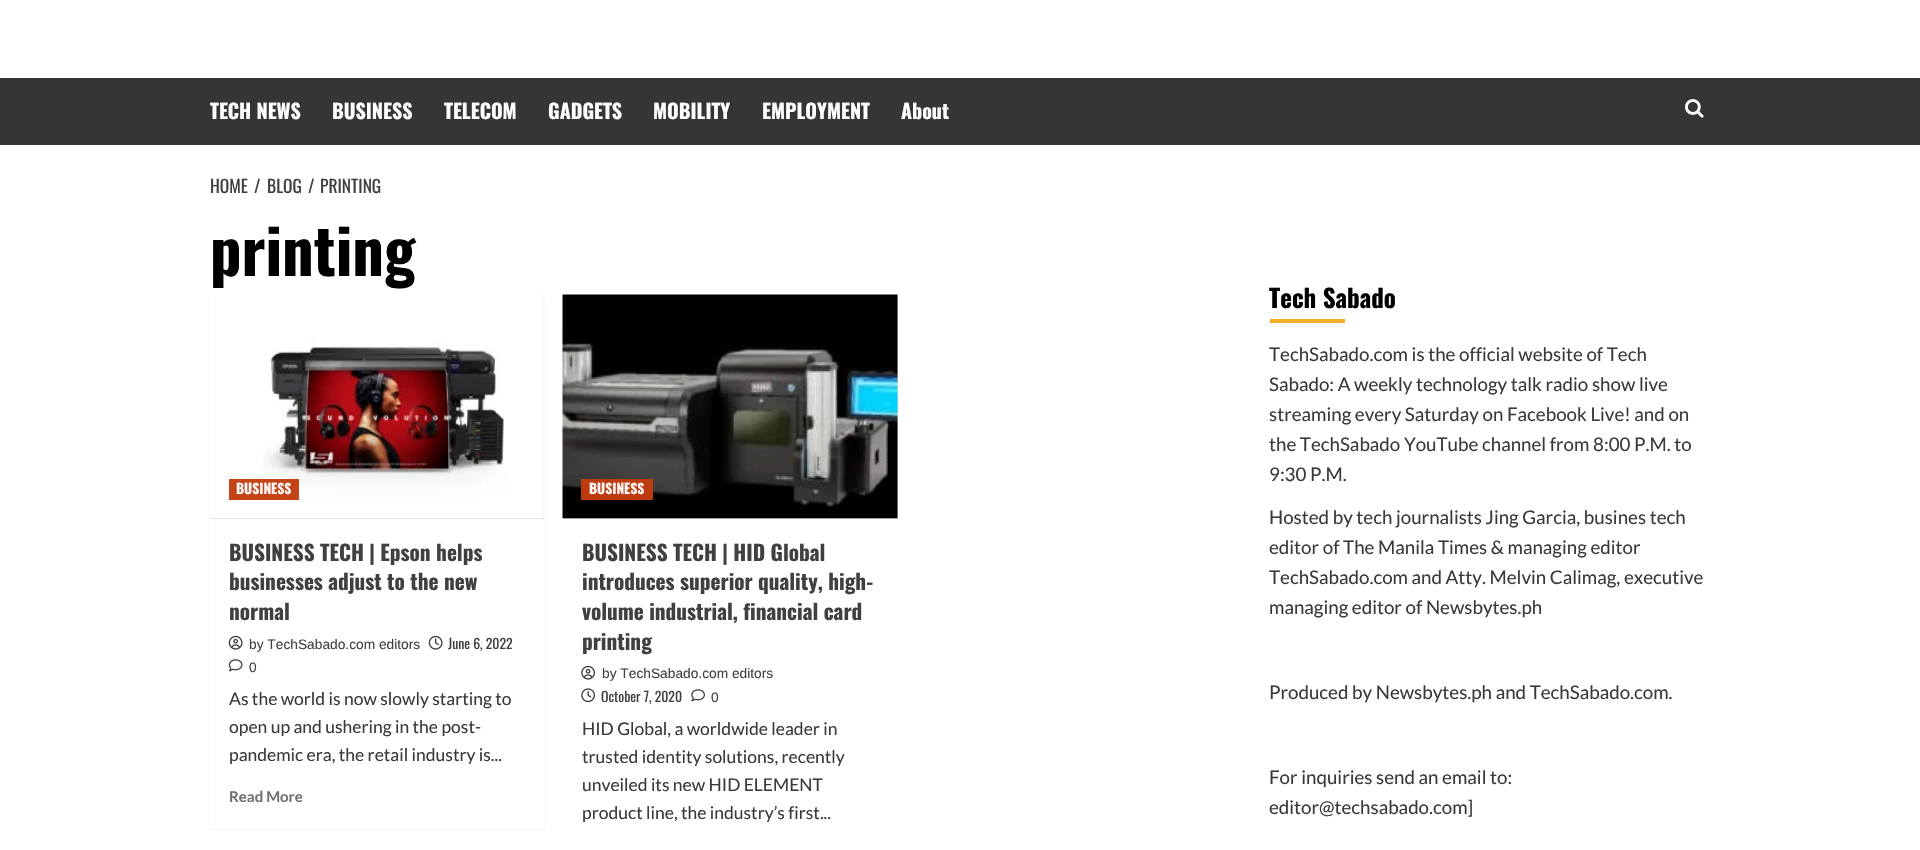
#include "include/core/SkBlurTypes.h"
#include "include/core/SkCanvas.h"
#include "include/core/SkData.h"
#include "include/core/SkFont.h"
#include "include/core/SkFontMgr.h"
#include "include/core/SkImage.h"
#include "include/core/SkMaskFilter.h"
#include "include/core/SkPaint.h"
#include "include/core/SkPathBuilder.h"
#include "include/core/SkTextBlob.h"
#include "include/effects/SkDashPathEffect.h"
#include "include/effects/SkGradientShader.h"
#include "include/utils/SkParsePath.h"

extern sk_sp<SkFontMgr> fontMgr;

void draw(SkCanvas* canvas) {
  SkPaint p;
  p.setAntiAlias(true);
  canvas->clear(SK_ColorWHITE);
  p.setColor(SkColorSetRGB(53, 53, 53));
  canvas->drawRect(SkRect::MakeLTRB(0, 78, 1920, 145), p);
  canvas->drawImageRect(SkImages::DeferredFromEncodedData(SkData::MakeFromFileName("images/1.png")), SkRect::MakeLTRB(1685, 99, 1704, 118), SkSamplingOptions());
  p.setColor(SkColorSetARGB(13, 0, 0, 0));
  p.setMaskFilter(SkMaskFilter::MakeBlur(kNormal_SkBlurStyle, 1));
  canvas->drawRect(SkRect::MakeLTRB(210, 296, 544, 830), p);
  p.setMaskFilter(nullptr);
  p.setColor(SK_ColorWHITE);
  canvas->drawRect(SkRect::MakeLTRB(210, 519, 544, 829), p);
  p.setColor(SkColorSetRGB(216, 216, 216));
  canvas->drawRect(SkRect::MakeLTRB(210, 295, 544, 519), p);
  canvas->drawImageRect(SkImages::DeferredFromEncodedData(SkData::MakeFromFileName("images/2.png")), SkRect::MakeLTRB(210, 295, 544, 519), SkSamplingOptions());
  p.setColor(SkColorSetARGB(245, 194, 59, 14));
  canvas->drawRect(SkRect::MakeLTRB(229, 479, 299, 500), p);
  canvas->drawImageRect(SkImages::DeferredFromEncodedData(SkData::MakeFromFileName("images/3.png")), SkRect::MakeLTRB(228, 635, 243, 650), SkSamplingOptions());
  canvas->drawImageRect(SkImages::DeferredFromEncodedData(SkData::MakeFromFileName("images/4.png")), SkRect::MakeLTRB(428, 635, 443, 650), SkSamplingOptions());
  canvas->drawImageRect(SkImages::DeferredFromEncodedData(SkData::MakeFromFileName("images/5.png")), SkRect::MakeLTRB(228, 659, 243, 672), SkSamplingOptions());
  p.setColor(SkColorSetRGB(216, 216, 216));
  canvas->drawRect(SkRect::MakeLTRB(563, 295, 898, 519), p);
  canvas->drawImageRect(SkImages::DeferredFromEncodedData(SkData::MakeFromFileName("images/6.png")), SkRect::MakeLTRB(562, 294, 898, 519), SkSamplingOptions());
  p.setColor(SkColorSetARGB(245, 194, 59, 14));
  canvas->drawRect(SkRect::MakeLTRB(581, 479, 653, 500), p);
  canvas->drawImageRect(SkImages::DeferredFromEncodedData(SkData::MakeFromFileName("images/7.png")), SkRect::MakeLTRB(581, 665, 595, 680), SkSamplingOptions());
  canvas->drawImageRect(SkImages::DeferredFromEncodedData(SkData::MakeFromFileName("images/8.png")), SkRect::MakeLTRB(581, 688, 595, 703), SkSamplingOptions());
  canvas->drawImageRect(SkImages::DeferredFromEncodedData(SkData::MakeFromFileName("images/9.png")), SkRect::MakeLTRB(691, 689, 705, 702), SkSamplingOptions());
  p.setColor(SkColorSetRGB(243, 173, 41));
  canvas->drawRect(SkRect::MakeLTRB(1270, 319, 1345, 323), p);
  SkFont font1(fontMgr->matchFamilyStyle("Oswald", SkFontStyle::Bold()), 20);
  font1.setSubpixel(true);
  p.setColor(SK_ColorWHITE);
  canvas->drawString("TECH NEWS", 210, 119, font1, p);
  canvas->drawString("BUSINESS", 332, 119, font1, p);
  canvas->drawString("TELECOM", 444, 119, font1, p);
  canvas->drawString("GADGETS", 548, 119, font1, p);
  canvas->drawString("MOBILITY", 653, 119, font1, p);
  canvas->drawString("EMPLOYMENT", 762, 119, font1, p);
  canvas->drawString("About", 901, 119, font1, p);
  SkFont font2(fontMgr->matchFamilyStyle("Oswald", SkFontStyle::Normal()), 17.5f);
  font2.setSubpixel(true);
  p.setColor(SkColorSetRGB(64, 64, 64));
  canvas->drawString("HOME", 210, 193, font2, p);
  canvas->drawString("/", 254, 193, font2, p);
  canvas->drawString("BLOG", 267, 193, font2, p);
  canvas->drawString("/", 308, 193, font2, p);
  canvas->drawString("PRINTING", 320, 193, font2, p);
  SkFont font3(fontMgr->matchFamilyStyle("Oswald", SkFontStyle::Bold()), 62.5f);
  font3.setSubpixel(true);
  p.setColor(SK_ColorBLACK);
  canvas->drawString("printing", 210, 276, font3, p);
  SkFont font4(fontMgr->matchFamilyStyle("Oswald", SkFontStyle::Bold()), 13.75f);
  font4.setSubpixel(true);
  p.setColor(SkColorSetRGB(253, 247, 246));
  canvas->drawString("BUSINESS", 236, 494, font4, p);
  SkFont font5(fontMgr->matchFamilyStyle("Oswald", SkFontStyle::Bold()), 21.25f);
  font5.setSubpixel(true);
  p.setColor(SkColorSetRGB(64, 64, 64));
  canvas->drawString("BUSINESS TECH | Epson helps", 229, 561, font5, p);
  canvas->drawString("businesses adjust to the new", 229, 590, font5, p);
  canvas->drawString("normal", 229, 620, font5, p);
  SkFont font6(fontMgr->matchFamilyStyle("Liberation Sans", SkFontStyle::Normal()), 13.75f);
  font6.setSubpixel(true);
  canvas->drawString("by TechSabado.com editors", 249, 649, font6, p);
  SkFont font7(fontMgr->matchFamilyStyle("Oswald", SkFontStyle::Normal()), 13.75f);
  font7.setSubpixel(true);
  canvas->drawString("June 6, 2022", 448, 649, font7, p);
  canvas->drawString("0", 249, 672, font6, p);
  SkFont font8(fontMgr->matchFamilyStyle("Lato", SkFontStyle::Normal()), 17.5f);
  font8.setSubpixel(true);
  p.setColor(SkColorSetRGB(58, 58, 58));
  canvas->drawString("As the world is now slowly starting to", 229, 705, font8, p);
  canvas->drawString("open up and ushering in the post-", 229, 733, font8, p);
  canvas->drawString("pandemic era, the retail industry is...", 229, 761, font8, p);
  SkFont font9(fontMgr->matchFamilyStyle("Lato", SkFontStyle::Bold()), 15);
  font9.setSubpixel(true);
  p.setColor(SkColorSetRGB(112, 112, 112));
  canvas->drawString("Read More", 229, 802, font9, p);
  p.setColor(SkColorSetRGB(253, 247, 246));
  canvas->drawString("BUSINESS", 589, 494, font4, p);
  p.setColor(SkColorSetRGB(64, 64, 64));
  canvas->drawString("BUSINESS TECH | HID Global", 582, 561, font5, p);
  canvas->drawString("introduces superior quality, high-", 582, 590, font5, p);
  canvas->drawString("volume industrial, financial card", 582, 620, font5, p);
  canvas->drawString("printing", 582, 650, font5, p);
  canvas->drawString("by TechSabado.com editors", 602, 678, font6, p);
  canvas->drawString("October 7, 2020", 601, 702, font7, p);
  canvas->drawString("0", 711, 702, font6, p);
  p.setColor(SkColorSetRGB(58, 58, 58));
  canvas->drawString("HID Global, a worldwide leader in", 582, 735, font8, p);
  canvas->drawString("trusted identity solutions, recently", 582, 763, font8, p);
  canvas->drawString("unveiled its new HID ELEMENT", 582, 791, font8, p);
  canvas->drawString("product line, the industry’s first...", 582, 819, font8, p);
  SkFont font10(fontMgr->matchFamilyStyle("Oswald", SkFontStyle::Bold()), 25);
  font10.setSubpixel(true);
  p.setColor(SK_ColorBLACK);
  canvas->drawString("Tech Sabado", 1269, 308, font10, p);
  SkFont font11(fontMgr->matchFamilyStyle("Lato", SkFontStyle::Normal()), 18.75f);
  font11.setSubpixel(true);
  p.setColor(SkColorSetRGB(58, 58, 58));
  canvas->drawString("TechSabado.com is the official website of Tech", 1269, 361, font11, p);
  canvas->drawString("Sabado: A weekly technology talk radio show live", 1269, 391, font11, p);
  canvas->drawString("streaming every Saturday on Facebook Live! and on", 1269, 421, font11, p);
  canvas->drawString("the TechSabado YouTube channel from 8:00 P.M. to", 1269, 451, font11, p);
  canvas->drawString("9:30 P.M.", 1269, 481, font11, p);
  canvas->drawString("Hosted by tech journalists Jing Garcia, busines tech", 1269, 524, font11, p);
  canvas->drawString("editor of The Manila Times & managing editor", 1269, 554, font11, p);
  canvas->drawString("TechSabado.com and Atty. Melvin Calimag, executive", 1269, 584, font11, p);
  canvas->drawString("managing editor of Newsbytes.ph", 1269, 614, font11, p);
  canvas->drawString("Produced by Newsbytes.ph and TechSabado.com.", 1269, 699, font11, p);
  canvas->drawString("For inquiries send an email to:", 1269, 784, font11, p);
  canvas->drawString("editor@techsabado.com]", 1269, 814, font11, p);
}
